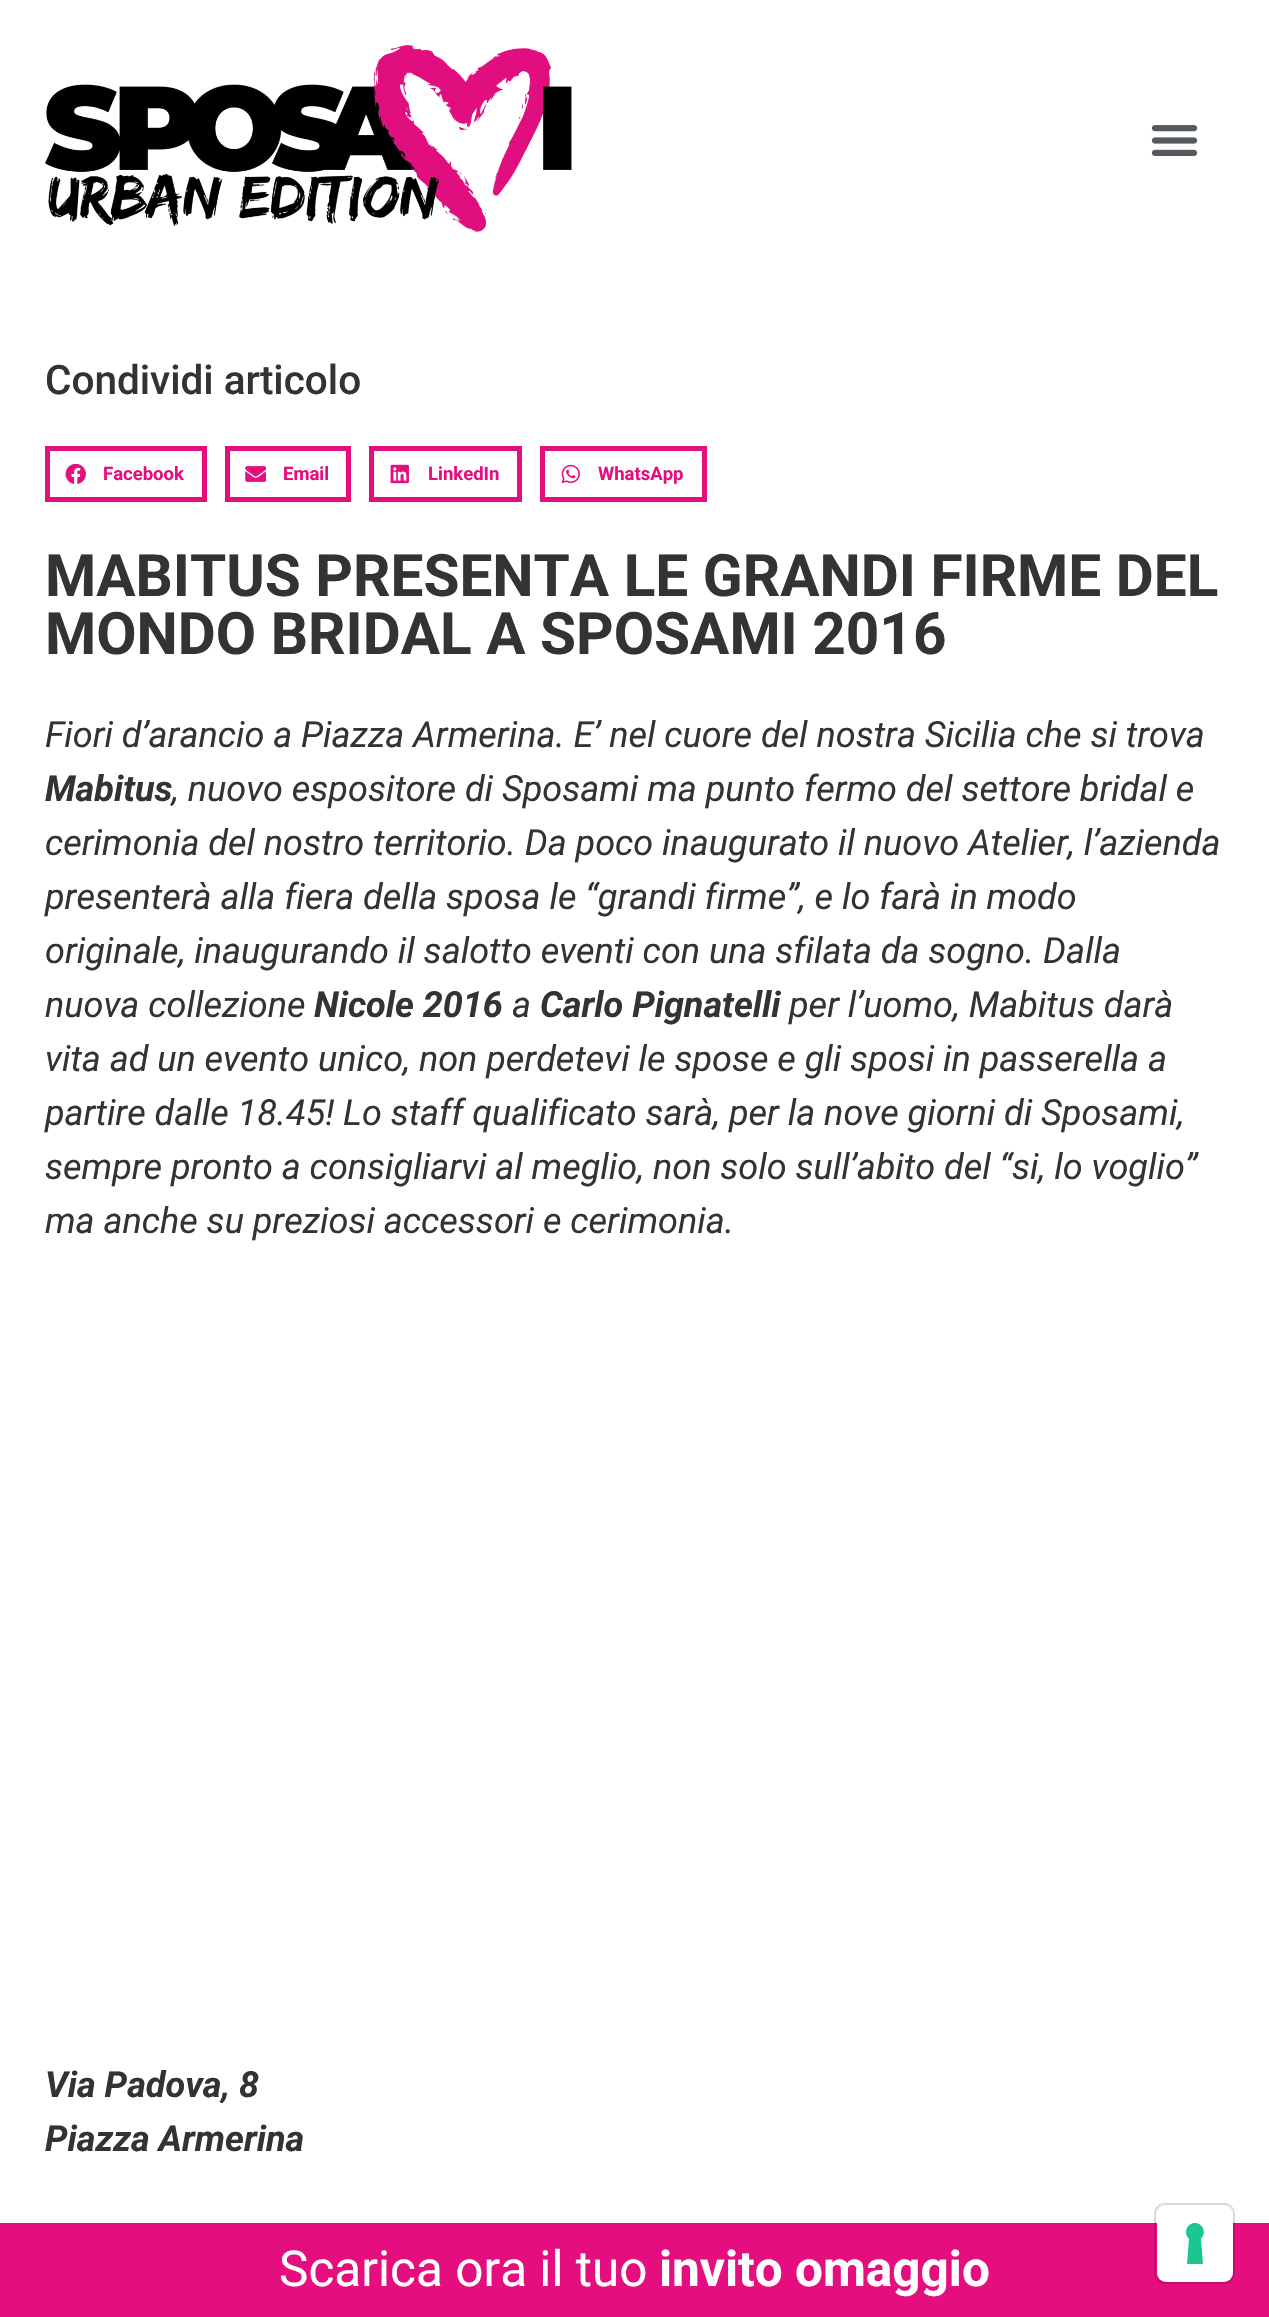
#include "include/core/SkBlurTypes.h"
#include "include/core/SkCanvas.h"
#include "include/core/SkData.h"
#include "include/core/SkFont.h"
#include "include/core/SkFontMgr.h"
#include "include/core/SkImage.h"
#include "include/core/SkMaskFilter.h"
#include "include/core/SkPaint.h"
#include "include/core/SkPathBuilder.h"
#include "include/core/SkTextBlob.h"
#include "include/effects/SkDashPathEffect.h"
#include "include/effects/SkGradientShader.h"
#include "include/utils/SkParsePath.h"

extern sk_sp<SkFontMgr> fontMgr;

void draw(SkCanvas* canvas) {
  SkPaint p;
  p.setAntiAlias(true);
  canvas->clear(SK_ColorWHITE);
  canvas->drawImageRect(SkImages::DeferredFromEncodedData(SkData::MakeFromFileName("images/1.png")), SkRect::MakeLTRB(45, 45, 572, 232), SkSamplingOptions());
  canvas->drawImageRect(SkImages::DeferredFromEncodedData(SkData::MakeFromFileName("images/2.png")), SkRect::MakeLTRB(1151, 125, 1198, 156), SkSamplingOptions());
  p.setStyle(SkPaint::kStroke_Style);
  p.setStrokeWidth(5);
  p.setColor(SkColorSetRGB(228, 14, 127));
  canvas->drawRect(SkRect::MakeLTRB(47.5f, 448.5f, 204.5f, 499.5f), p);
  canvas->drawImageRect(SkImages::DeferredFromEncodedData(SkData::MakeFromFileName("images/3.png")), SkRect::MakeLTRB(65, 464, 86, 484), SkSamplingOptions());
  canvas->drawRect(SkRect::MakeLTRB(227.5f, 448.5f, 348.5f, 499.5f), p);
  canvas->drawImageRect(SkImages::DeferredFromEncodedData(SkData::MakeFromFileName("images/4.png")), SkRect::MakeLTRB(245, 466, 266, 482), SkSamplingOptions());
  canvas->drawRect(SkRect::MakeLTRB(371.5f, 448.5f, 519.5f, 499.5f), p);
  canvas->drawImageRect(SkImages::DeferredFromEncodedData(SkData::MakeFromFileName("images/5.png")), SkRect::MakeLTRB(390, 464, 409, 484), SkSamplingOptions());
  canvas->drawRect(SkRect::MakeLTRB(542.5f, 448.5f, 704.5f, 499.5f), p);
  canvas->drawImageRect(SkImages::DeferredFromEncodedData(SkData::MakeFromFileName("images/6.png")), SkRect::MakeLTRB(561, 464, 580, 484), SkSamplingOptions());
  p.setStyle(SkPaint::kFill_Style);
  canvas->drawRect(SkRect::MakeLTRB(0, 2223, 1269, 2317), p);
  p.setStyle(SkPaint::kStroke_Style);
  p.setStrokeWidth(2);
  p.setColor(SkColorSetARGB(38, 0, 0, 0));
  canvas->drawRoundRect(SkRect::MakeLTRB(1155, 2204, 1234, 2283), 10, 10, p);
  p.setStyle(SkPaint::kFill_Style);
  p.setColor(SK_ColorWHITE);
  canvas->drawRoundRect(SkRect::MakeLTRB(1157, 2205, 1233, 2282), 9, 9, p);
  p.setColor(SkColorSetRGB(28, 198, 145));
  canvas->drawPath(SkPathBuilder(SkPathFillType::kEvenOdd).moveTo(1195, 2223).cubicTo(1203, 2223, 1207, 2233, 1201, 2239).lineTo(1203, 2264).lineTo(1187, 2264).lineTo(1189, 2239).cubicTo(1183, 2233, 1187, 2223, 1195, 2223).close().detach(), p);
  SkFont font1(fontMgr->matchFamilyStyle("Roboto", SkFontStyle(500, SkFontStyle::kNormal_Width, SkFontStyle::kUpright_Slant)), 40.5f);
  font1.setSubpixel(true);
  p.setColor(SkColorSetRGB(51, 51, 51));
  canvas->drawString("Condividi articolo", 45, 394, font1, p);
  SkFont font2(fontMgr->matchFamilyStyle("Roboto", SkFontStyle::Bold()), 18.5f);
  font2.setSubpixel(true);
  p.setColor(SkColorSetRGB(228, 14, 127));
  canvas->drawString("Facebook", 103, 480, font2, p);
  canvas->drawString("Email", 283, 480, font2, p);
  canvas->drawString("LinkedIn", 428, 480, font2, p);
  canvas->drawString("WhatsApp", 598, 480, font2, p);
  SkFont font3(fontMgr->matchFamilyStyle("Roboto", SkFontStyle::Bold()), 58.5f);
  font3.setSubpixel(true);
  p.setColor(SkColorSetRGB(51, 51, 51));
  canvas->drawString("MABITUS PRESENTA LE GRANDI FIRME DEL", 45, 596, font3, p);
  canvas->drawString("MONDO BRIDAL A SPOSAMI 2016", 45, 654, font3, p);
  SkFont font4(fontMgr->matchFamilyStyle("Roboto", SkFontStyle::Italic()), 36);
  font4.setSubpixel(true);
  canvas->drawString("Fiori d’arancio a Piazza Armerina. E’ nel cuore del nostra Sicilia che si trova", 45, 747, font4, p);
  SkFont font5(fontMgr->matchFamilyStyle("Roboto", SkFontStyle::BoldItalic()), 36);
  font5.setSubpixel(true);
  canvas->drawString("Mabitus", 45, 801, font5, p);
  canvas->drawString(", nuovo espositore di Sposami ma punto fermo del settore bridal e", 172, 801, font4, p);
  canvas->drawString("cerimonia del nostro territorio. Da poco inaugurato il nuovo Atelier, l’azienda", 45, 855, font4, p);
  canvas->drawString("presenterà alla fiera della sposa le “grandi firme”, e lo farà in modo", 45, 909, font4, p);
  canvas->drawString("originale, inaugurando il salotto eventi con una sfilata da sogno. Dalla", 45, 963, font4, p);
  canvas->drawString("nuova collezione", 45, 1017, font4, p);
  canvas->drawString("Nicole 2016", 314, 1017, font5, p);
  canvas->drawString("a", 512, 1017, font4, p);
  canvas->drawString("Carlo Pignatelli", 540, 1017, font5, p);
  canvas->drawString("per l’uomo, Mabitus darà", 789, 1017, font4, p);
  canvas->drawString("vita ad un evento unico, non perdetevi le spose e gli sposi in passerella a", 45, 1071, font4, p);
  canvas->drawString("partire dalle 18.45! Lo staff qualificato sarà, per la nove giorni di Sposami,", 45, 1125, font4, p);
  canvas->drawString("sempre pronto a consigliarvi al meglio, non solo sull’abito del “si, lo voglio”", 45, 1179, font4, p);
  canvas->drawString("ma anche su preziosi accessori e cerimonia.", 45, 1233, font4, p);
  canvas->drawString("Via Padova, 8", 45, 2097, font5, p);
  canvas->drawString("Piazza Armerina", 45, 2151, font5, p);
  SkFont font6(fontMgr->matchFamilyStyle("Roboto", SkFontStyle::Normal()), 49.5f);
  font6.setSubpixel(true);
  p.setColor(SK_ColorWHITE);
  canvas->drawString("Scarica ora il tuo", 279, 2286, font6, p);
  SkFont font7(fontMgr->matchFamilyStyle("Roboto", SkFontStyle::Bold()), 49.5f);
  font7.setSubpixel(true);
  canvas->drawString("invito omaggio", 659, 2286, font7, p);
}
